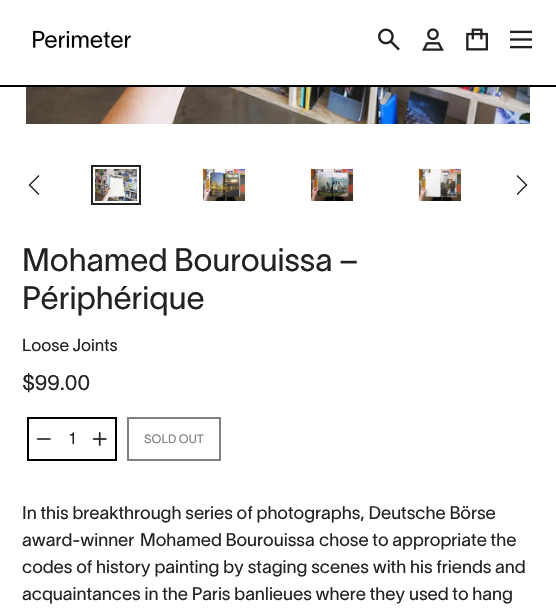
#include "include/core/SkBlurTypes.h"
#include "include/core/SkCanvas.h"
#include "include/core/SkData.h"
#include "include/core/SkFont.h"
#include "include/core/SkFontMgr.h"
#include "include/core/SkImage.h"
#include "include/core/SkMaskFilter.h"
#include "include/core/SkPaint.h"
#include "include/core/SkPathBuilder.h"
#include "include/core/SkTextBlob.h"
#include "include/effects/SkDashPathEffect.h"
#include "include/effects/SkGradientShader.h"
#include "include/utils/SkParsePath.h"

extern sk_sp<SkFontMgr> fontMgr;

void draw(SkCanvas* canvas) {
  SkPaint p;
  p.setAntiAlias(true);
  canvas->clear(SK_ColorWHITE);
  p.setColor(SK_ColorBLACK);
  canvas->drawRect(SkRect::MakeLTRB(0, 85, 556, 87), p);
  canvas->drawImageRect(SkImages::DeferredFromEncodedData(SkData::MakeFromFileName("images/1.png")), SkRect::MakeLTRB(33, 30, 131, 48), SkSamplingOptions());
  canvas->drawImageRect(SkImages::DeferredFromEncodedData(SkData::MakeFromFileName("images/2.png")), SkRect::MakeLTRB(378, 28, 400, 51), SkSamplingOptions());
  canvas->drawImageRect(SkImages::DeferredFromEncodedData(SkData::MakeFromFileName("images/3.png")), SkRect::MakeLTRB(422, 28, 444, 51), SkSamplingOptions());
  canvas->drawImageRect(SkImages::DeferredFromEncodedData(SkData::MakeFromFileName("images/4.png")), SkRect::MakeLTRB(466, 28, 488, 51), SkSamplingOptions());
  canvas->drawImageRect(SkImages::DeferredFromEncodedData(SkData::MakeFromFileName("images/5.png")), SkRect::MakeLTRB(510, 30, 532, 49), SkSamplingOptions());
  canvas->drawImageRect(SkImages::DeferredFromEncodedData(SkData::MakeFromFileName("images/6.png")), SkRect::MakeLTRB(26, 87, 530, 124), SkSamplingOptions());
  p.setColor(SkColorSetRGB(34, 34, 34));
  canvas->drawPath(SkPathBuilder().moveTo(39.5f, 176).lineTo(38.5f, 175).lineTo(28.5f, 185).lineTo(38.5f, 195).lineTo(39.5f, 194).lineTo(30.5f, 185).close().detach(), p);
  p.setStyle(SkPaint::kStroke_Style);
  p.setStrokeWidth(2);
  canvas->drawRect(SkRect::MakeLTRB(92, 166, 140, 204), p);
  canvas->drawImageRect(SkImages::DeferredFromEncodedData(SkData::MakeFromFileName("images/7.png")), SkRect::MakeLTRB(95, 169, 137, 201), SkSamplingOptions());
  canvas->drawImageRect(SkImages::DeferredFromEncodedData(SkData::MakeFromFileName("images/8.png")), SkRect::MakeLTRB(203, 169, 245, 201), SkSamplingOptions());
  canvas->drawImageRect(SkImages::DeferredFromEncodedData(SkData::MakeFromFileName("images/9.png")), SkRect::MakeLTRB(311, 169, 353, 201), SkSamplingOptions());
  canvas->drawImageRect(SkImages::DeferredFromEncodedData(SkData::MakeFromFileName("images/10.png")), SkRect::MakeLTRB(419, 169, 461, 201), SkSamplingOptions());
  p.setStyle(SkPaint::kFill_Style);
  canvas->drawPath(SkPathBuilder().moveTo(517.5f, 175).lineTo(516.5f, 176).lineTo(525.5f, 185).lineTo(516.5f, 194).lineTo(517.5f, 195).lineTo(527.5f, 185).close().detach(), p);
  p.setStyle(SkPaint::kStroke_Style);
  p.setColor(SK_ColorBLACK);
  canvas->drawRect(SkRect::MakeLTRB(28, 418, 116, 460), p);
  canvas->drawImageRect(SkImages::DeferredFromEncodedData(SkData::MakeFromFileName("images/11.png")), SkRect::MakeLTRB(36, 438, 51, 440), SkSamplingOptions());
  canvas->drawImageRect(SkImages::DeferredFromEncodedData(SkData::MakeFromFileName("images/12.png")), SkRect::MakeLTRB(92, 432, 107, 446), SkSamplingOptions());
  p.setColor(SkColorSetRGB(128, 128, 128));
  canvas->drawRect(SkRect::MakeLTRB(128, 418, 220, 460), p);
  SkFont font1(fontMgr->matchFamilyStyle("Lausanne", SkFontStyle::Normal()), 32);
  font1.setSubpixel(true);
  p.setStyle(SkPaint::kFill_Style);
  p.setColor(SkColorSetRGB(34, 34, 34));
  canvas->drawString("Mohamed Bourouissa –", 22, 271, font1, p);
  canvas->drawString("Périphérique", 22, 309, font1, p);
  SkFont font2(fontMgr->matchFamilyStyle("Lausanne", SkFontStyle::Normal()), 17);
  font2.setSubpixel(true);
  canvas->drawString("Loose Joints", 22, 351, font2, p);
  SkFont font3(fontMgr->matchFamilyStyle("Lausanne", SkFontStyle::Normal()), 21);
  font3.setSubpixel(true);
  canvas->drawString("$99.00", 22, 390, font3, p);
  SkFont font4(fontMgr->matchFamilyStyle("Lausanne", SkFontStyle::Normal()), 16);
  font4.setSubpixel(true);
  canvas->drawString("1", 69, 444, font4, p);
  SkFont font5(fontMgr->matchFamilyStyle("Lausanne", SkFontStyle::Normal()), 12);
  font5.setSubpixel(true);
  p.setColor(SkColorSetRGB(128, 128, 128));
  canvas->drawString("SOLD OUT", 144, 443, font5, p);
  SkFont font6(fontMgr->matchFamilyStyle("Lausanne", SkFontStyle::Normal()), 18);
  font6.setSubpixel(true);
  p.setColor(SkColorSetRGB(34, 34, 34));
  canvas->drawString("In this breakthrough series of photographs, Deutsche Börse", 22, 519, font6, p);
  canvas->drawString("award-winner", 22, 546, font6, p);
  canvas->drawString("Mohamed Bourouissa", 140, 546, font6, p);
  canvas->drawString("chose to appropriate the", 319, 546, font6, p);
  canvas->drawString("codes of history painting by staging scenes with his friends and", 22, 573, font6, p);
  canvas->drawString("acquaintances in the Paris banlieues where they used to hang", 22, 600, font6, p);
}
